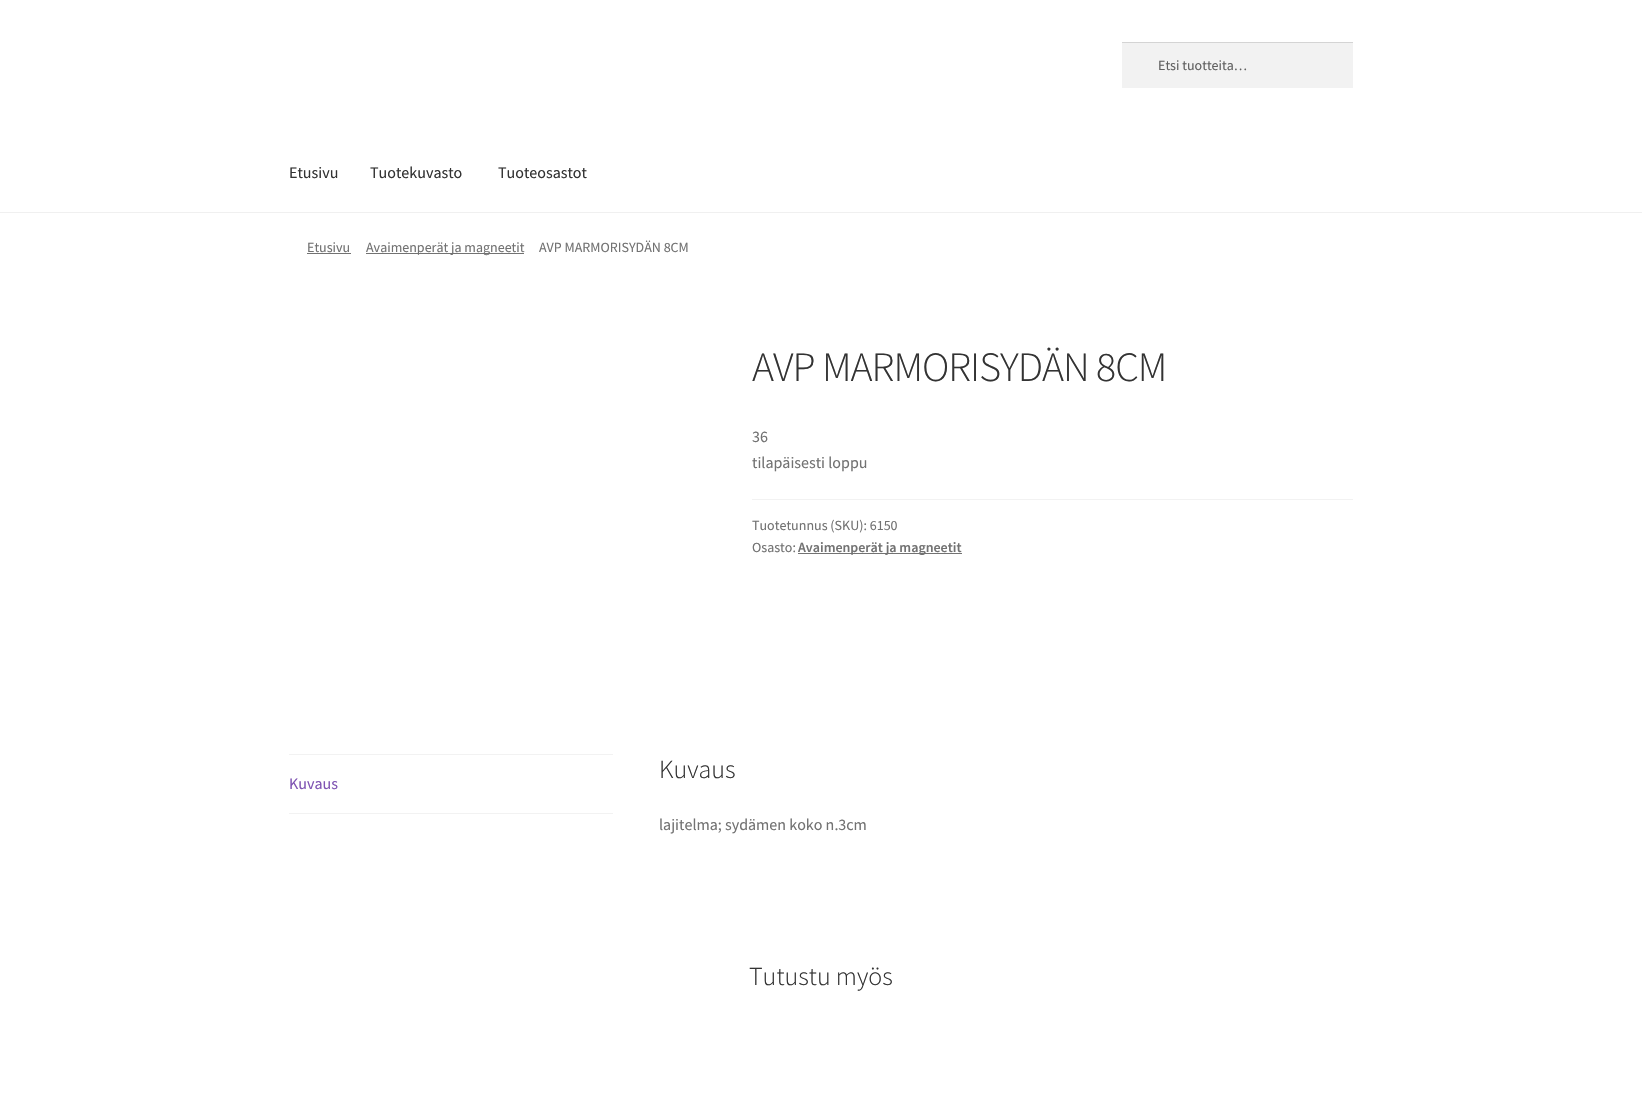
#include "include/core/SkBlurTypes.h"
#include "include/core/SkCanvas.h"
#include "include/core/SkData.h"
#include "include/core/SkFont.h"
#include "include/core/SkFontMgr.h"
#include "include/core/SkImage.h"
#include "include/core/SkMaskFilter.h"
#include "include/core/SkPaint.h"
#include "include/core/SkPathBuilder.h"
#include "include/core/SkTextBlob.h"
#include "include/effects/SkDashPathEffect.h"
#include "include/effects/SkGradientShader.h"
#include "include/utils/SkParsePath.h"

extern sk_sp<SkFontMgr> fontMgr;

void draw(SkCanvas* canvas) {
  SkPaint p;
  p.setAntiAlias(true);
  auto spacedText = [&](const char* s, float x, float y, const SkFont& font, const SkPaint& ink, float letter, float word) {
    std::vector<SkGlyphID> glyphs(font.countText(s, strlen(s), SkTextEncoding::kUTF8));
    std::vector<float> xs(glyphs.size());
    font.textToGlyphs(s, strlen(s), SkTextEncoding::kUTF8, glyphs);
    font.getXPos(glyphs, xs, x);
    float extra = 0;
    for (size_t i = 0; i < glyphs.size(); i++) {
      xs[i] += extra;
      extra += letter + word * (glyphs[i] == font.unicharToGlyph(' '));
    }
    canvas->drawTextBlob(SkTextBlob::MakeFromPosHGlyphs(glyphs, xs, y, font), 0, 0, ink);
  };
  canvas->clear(SK_ColorWHITE);
  p.setColor(SkColorSetRGB(240, 240, 240));
  canvas->drawRect(SkRect::MakeLTRB(0, 212, 1642, 213), p);
  p.setColor(SkColorSetRGB(242, 242, 242));
  canvas->drawRect(SkRect::MakeLTRB(1122, 43, 1353, 88), p);
  p.setColor(SkColorSetRGB(212, 212, 212));
  canvas->drawRect(SkRect::MakeLTRB(1122, 42, 1353, 43), p);
  p.setColor(SkColorSetRGB(114, 114, 114));
  canvas->drawRect(SkRect::MakeLTRB(307, 253, 351, 254), p);
  canvas->drawRect(SkRect::MakeLTRB(366, 253, 524, 254), p);
  p.setColor(SkColorSetRGB(242, 242, 242));
  canvas->drawRect(SkRect::MakeLTRB(752, 499, 1353, 500), p);
  p.setColor(SkColorSetRGB(114, 114, 114));
  canvas->drawRect(SkRect::MakeLTRB(798, 553, 962, 554), p);
  p.setColor(SkColorSetRGB(242, 242, 242));
  canvas->drawRect(SkRect::MakeLTRB(289, 754, 613, 755), p);
  canvas->drawRect(SkRect::MakeLTRB(289, 813, 613, 814), p);
  SkFont font1(fontMgr->matchFamilyStyle("Source Sans Pro", SkFontStyle::Normal()), 14);
  font1.setSubpixel(true);
  p.setColor(SkColorSetRGB(97, 97, 97));
  canvas->drawString("Etsi tuotteita…", 1158, 70, font1, p);
  SkFont font2(fontMgr->matchFamilyStyle("Source Sans Pro", SkFontStyle::Normal()), 16);
  font2.setSubpixel(true);
  p.setColor(SkColorSetRGB(51, 51, 51));
  canvas->drawString("Etusivu", 289, 178, font2, p);
  canvas->drawString("Tuotekuvasto", 370, 178, font2, p);
  canvas->drawString("Tuoteosastot", 498, 178, font2, p);
  p.setColor(SkColorSetRGB(114, 114, 114));
  canvas->drawString("Etusivu", 307, 252, font1, p);
  canvas->drawString("Avaimenperät ja magneetit", 366, 252, font1, p);
  canvas->drawString("AVP MARMORISYDÄN 8CM", 539, 252, font1, p);
  SkFont font3(fontMgr->matchFamilyStyle("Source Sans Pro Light", SkFontStyle(300, SkFontStyle::kNormal_Width, SkFontStyle::kUpright_Slant)), 41.9f);
  font3.setSubpixel(true);
  p.setColor(SkColorSetRGB(51, 51, 51));
  spacedText("AVP MARMORISYDÄN 8CM", 752, 381, font3, p, -1, 0);
  p.setColor(SkColorSetRGB(114, 114, 114));
  canvas->drawString("36", 752, 442, font2, p);
  canvas->drawString("tilapäisesti loppu", 752, 468, font2, p);
  canvas->drawString("Tuotetunnus (SKU): 6150", 752, 530, font1, p);
  canvas->drawString("Osasto:", 752, 552, font1, p);
  SkFont font4(fontMgr->matchFamilyStyle("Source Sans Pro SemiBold", SkFontStyle(600, SkFontStyle::kNormal_Width, SkFontStyle::kUpright_Slant)), 14);
  font4.setSubpixel(true);
  canvas->drawString("Avaimenperät ja magneetit", 798, 552, font4, p);
  p.setColor(SkColorSetRGB(127, 84, 179));
  canvas->drawString("Kuvaus", 289, 789, font2, p);
  SkFont font5(fontMgr->matchFamilyStyle("Source Sans Pro Light", SkFontStyle(300, SkFontStyle::kNormal_Width, SkFontStyle::kUpright_Slant)), 26);
  font5.setSubpixel(true);
  p.setColor(SkColorSetRGB(51, 51, 51));
  canvas->drawString("Kuvaus", 659, 778, font5, p);
  p.setColor(SkColorSetRGB(114, 114, 114));
  canvas->drawString("lajitelma; sydämen koko n.3cm", 659, 830, font2, p);
  p.setColor(SkColorSetRGB(51, 51, 51));
  canvas->drawString("Tutustu myös", 749, 985, font5, p);
}
